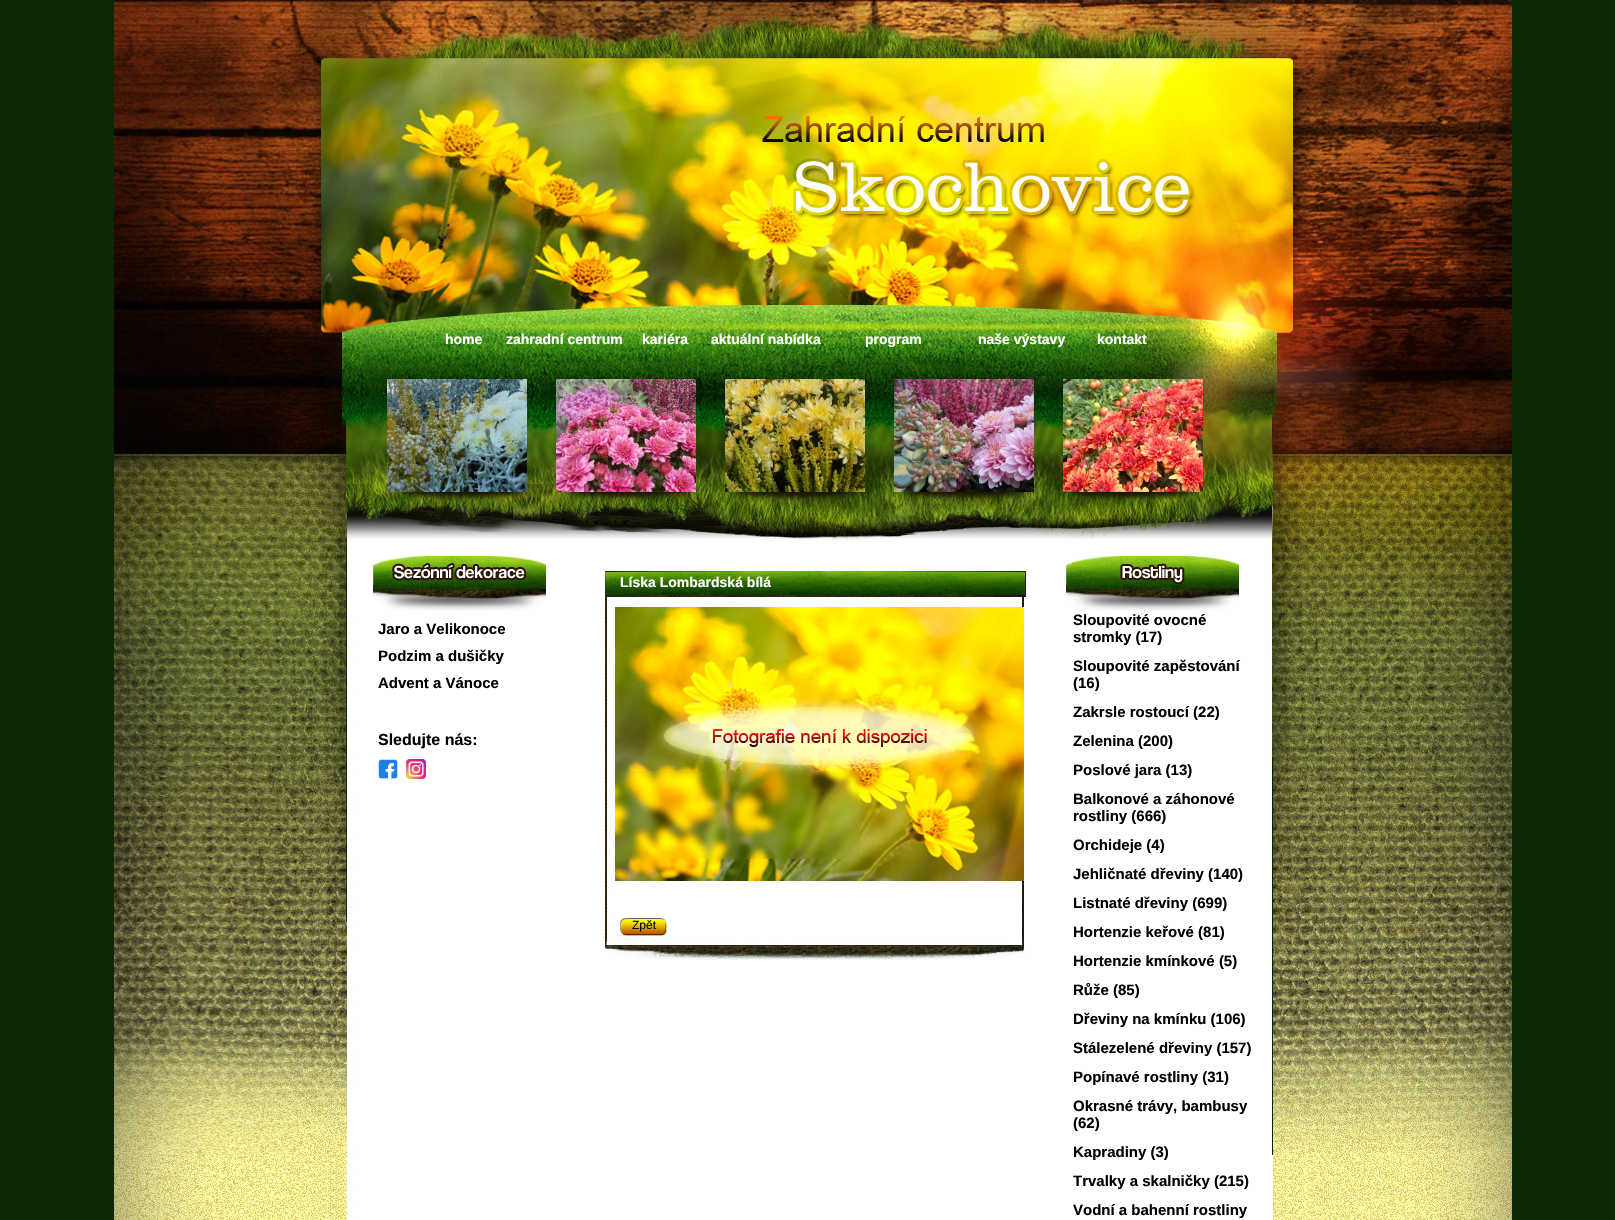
#include "include/core/SkBlurTypes.h"
#include "include/core/SkCanvas.h"
#include "include/core/SkData.h"
#include "include/core/SkFont.h"
#include "include/core/SkFontMgr.h"
#include "include/core/SkImage.h"
#include "include/core/SkMaskFilter.h"
#include "include/core/SkPaint.h"
#include "include/core/SkPathBuilder.h"
#include "include/core/SkTextBlob.h"
#include "include/effects/SkDashPathEffect.h"
#include "include/effects/SkGradientShader.h"
#include "include/utils/SkParsePath.h"

extern sk_sp<SkFontMgr> fontMgr;

void draw(SkCanvas* canvas) {
  SkPaint p;
  p.setAntiAlias(true);
  canvas->clear(SkColorSetRGB(13, 40, 6));
  canvas->drawImageRect(SkImages::DeferredFromEncodedData(SkData::MakeFromFileName("images/1.png")), SkRect::MakeLTRB(114, 0, 313, 1155), SkSamplingOptions());
  canvas->drawImageRect(SkImages::DeferredFromEncodedData(SkData::MakeFromFileName("images/2.png")), SkRect::MakeLTRB(313, 0, 1313, 541), SkSamplingOptions());
  canvas->drawImageRect(SkImages::DeferredFromEncodedData(SkData::MakeFromFileName("images/3.png")), SkRect::MakeLTRB(387, 379, 527, 492), SkSamplingOptions());
  canvas->drawImageRect(SkImages::DeferredFromEncodedData(SkData::MakeFromFileName("images/4.png")), SkRect::MakeLTRB(556, 379, 696, 492), SkSamplingOptions());
  canvas->drawImageRect(SkImages::DeferredFromEncodedData(SkData::MakeFromFileName("images/5.png")), SkRect::MakeLTRB(725, 379, 865, 492), SkSamplingOptions());
  canvas->drawImageRect(SkImages::DeferredFromEncodedData(SkData::MakeFromFileName("images/6.png")), SkRect::MakeLTRB(894, 379, 1034, 492), SkSamplingOptions());
  canvas->drawImageRect(SkImages::DeferredFromEncodedData(SkData::MakeFromFileName("images/7.png")), SkRect::MakeLTRB(1063, 379, 1203, 492), SkSamplingOptions());
  canvas->drawImageRect(SkImages::DeferredFromEncodedData(SkData::MakeFromFileName("images/8.png")), SkRect::MakeLTRB(1313, 0, 1512, 1155), SkSamplingOptions());
  canvas->drawImageRect(SkImages::DeferredFromEncodedData(SkData::MakeFromFileName("images/9.png")), SkRect::MakeLTRB(114, 1155, 313, 1220), SkSamplingOptions());
  canvas->drawImageRect(SkImages::DeferredFromEncodedData(SkData::MakeFromFileName("images/10.png")), SkRect::MakeLTRB(313, 1155, 1313, 1220), SkSamplingOptions());
  canvas->drawImageRect(SkImages::DeferredFromEncodedData(SkData::MakeFromFileName("images/11.png")), SkRect::MakeLTRB(313, 541, 1313, 1155), SkSamplingOptions());
  canvas->drawImageRect(SkImages::DeferredFromEncodedData(SkData::MakeFromFileName("images/12.png")), SkRect::MakeLTRB(373, 556, 546, 611), SkSamplingOptions());
  canvas->drawImageRect(SkImages::DeferredFromEncodedData(SkData::MakeFromFileName("images/13.png")), SkRect::MakeLTRB(392, 563, 527, 581), SkSamplingOptions());
  canvas->drawImageRect(SkImages::DeferredFromEncodedData(SkData::MakeFromFileName("images/14.png")), SkRect::MakeLTRB(378, 759, 398, 779), SkSamplingOptions());
  canvas->drawImageRect(SkImages::DeferredFromEncodedData(SkData::MakeFromFileName("images/15.png")), SkRect::MakeLTRB(406, 759, 426, 779), SkSamplingOptions());
  canvas->drawImageRect(SkImages::DeferredFromEncodedData(SkData::MakeFromFileName("images/16.png")), SkRect::MakeLTRB(605, 571, 1026, 597), SkSamplingOptions());
  canvas->drawImageRect(SkImages::DeferredFromEncodedData(SkData::MakeFromFileName("images/17.png")), SkRect::MakeLTRB(605, 597, 1024, 941), SkSamplingOptions());
  canvas->drawImageRect(SkImages::DeferredFromEncodedData(SkData::MakeFromFileName("images/18.png")), SkRect::MakeLTRB(615, 607, 1024, 881), SkSamplingOptions());
  canvas->drawImageRect(SkImages::DeferredFromEncodedData(SkData::MakeFromFileName("images/19.png")), SkRect::MakeLTRB(620, 918, 667, 936), SkSamplingOptions());
  canvas->drawImageRect(SkImages::DeferredFromEncodedData(SkData::MakeFromFileName("images/20.png")), SkRect::MakeLTRB(605, 941, 1025, 960), SkSamplingOptions());
  canvas->drawImageRect(SkImages::DeferredFromEncodedData(SkData::MakeFromFileName("images/12.png")), SkRect::MakeLTRB(1066, 556, 1239, 611), SkSamplingOptions());
  canvas->drawImageRect(SkImages::DeferredFromEncodedData(SkData::MakeFromFileName("images/21.png")), SkRect::MakeLTRB(1120, 563, 1185, 585), SkSamplingOptions());
  canvas->drawImageRect(SkImages::DeferredFromEncodedData(SkData::MakeFromFileName("images/22.png")), SkRect::MakeLTRB(1313, 1155, 1512, 1220), SkSamplingOptions());
  SkFont font1(fontMgr->matchFamilyStyle("Liberation Sans", SkFontStyle::Bold()), 14);
  font1.setSubpixel(true);
  p.setColor(SK_ColorWHITE);
  canvas->drawString("home", 445, 344, font1, p);
  canvas->drawString("zahradní centrum", 506, 344, font1, p);
  canvas->drawString("kariéra", 642, 344, font1, p);
  canvas->drawString("aktuální nabídka", 711, 344, font1, p);
  canvas->drawString("program", 865, 344, font1, p);
  canvas->drawString("naše výstavy", 978, 344, font1, p);
  canvas->drawString("kontakt", 1097, 344, font1, p);
  SkFont font2(fontMgr->matchFamilyStyle("Liberation Sans", SkFontStyle::Bold()), 15);
  font2.setSubpixel(true);
  p.setColor(SK_ColorBLACK);
  canvas->drawString("Jaro a Velikonoce", 378, 634, font2, p);
  canvas->drawString("Podzim a dušičky", 378, 661, font2, p);
  canvas->drawString("Advent a Vánoce", 378, 688, font2, p);
  SkFont font3(fontMgr->matchFamilyStyle("Liberation Sans", SkFontStyle::Bold()), 16);
  font3.setSubpixel(true);
  canvas->drawString("Sledujte nás:", 378, 745, font3, p);
  p.setColor(SK_ColorWHITE);
  canvas->drawString("Líska Lombardská bílá", 620, 587, font1, p);
  SkFont font4(fontMgr->matchFamilyStyle("Liberation Sans", SkFontStyle::Normal()), 12);
  font4.setSubpixel(true);
  p.setColor(SK_ColorBLACK);
  canvas->drawString("Zpět", 632, 929, font4, p);
  canvas->drawString("Sloupovité ovocné", 1073, 625, font2, p);
  canvas->drawString("stromky (17)", 1073, 642, font2, p);
  canvas->drawString("Sloupovité zapěstování", 1073, 671, font2, p);
  canvas->drawString("(16)", 1073, 688, font2, p);
  canvas->drawString("Zakrsle rostoucí (22)", 1073, 717, font2, p);
  canvas->drawString("Zelenina (200)", 1073, 746, font2, p);
  canvas->drawString("Poslové jara (13)", 1073, 775, font2, p);
  canvas->drawString("Balkonové a záhonové", 1073, 804, font2, p);
  canvas->drawString("rostliny (666)", 1073, 821, font2, p);
  canvas->drawString("Orchideje (4)", 1073, 850, font2, p);
  canvas->drawString("Jehličnaté dřeviny (140)", 1073, 879, font2, p);
  canvas->drawString("Listnaté dřeviny (699)", 1073, 908, font2, p);
  canvas->drawString("Hortenzie keřové (81)", 1073, 937, font2, p);
  canvas->drawString("Hortenzie kmínkové (5)", 1073, 966, font2, p);
  canvas->drawString("Růže (85)", 1073, 995, font2, p);
  canvas->drawString("Dřeviny na kmínku (106)", 1073, 1024, font2, p);
  canvas->drawString("Stálezelené dřeviny (157)", 1073, 1053, font2, p);
  canvas->drawString("Popínavé rostliny (31)", 1073, 1082, font2, p);
  canvas->drawString("Okrasné trávy, bambusy", 1073, 1111, font2, p);
  canvas->drawString("(62)", 1073, 1128, font2, p);
  canvas->drawString("Kapradiny (3)", 1073, 1157, font2, p);
  canvas->drawString("Trvalky a skalničky (215)", 1073, 1186, font2, p);
  canvas->drawString("Vodní a bahenní rostliny", 1073, 1215, font2, p);
}
